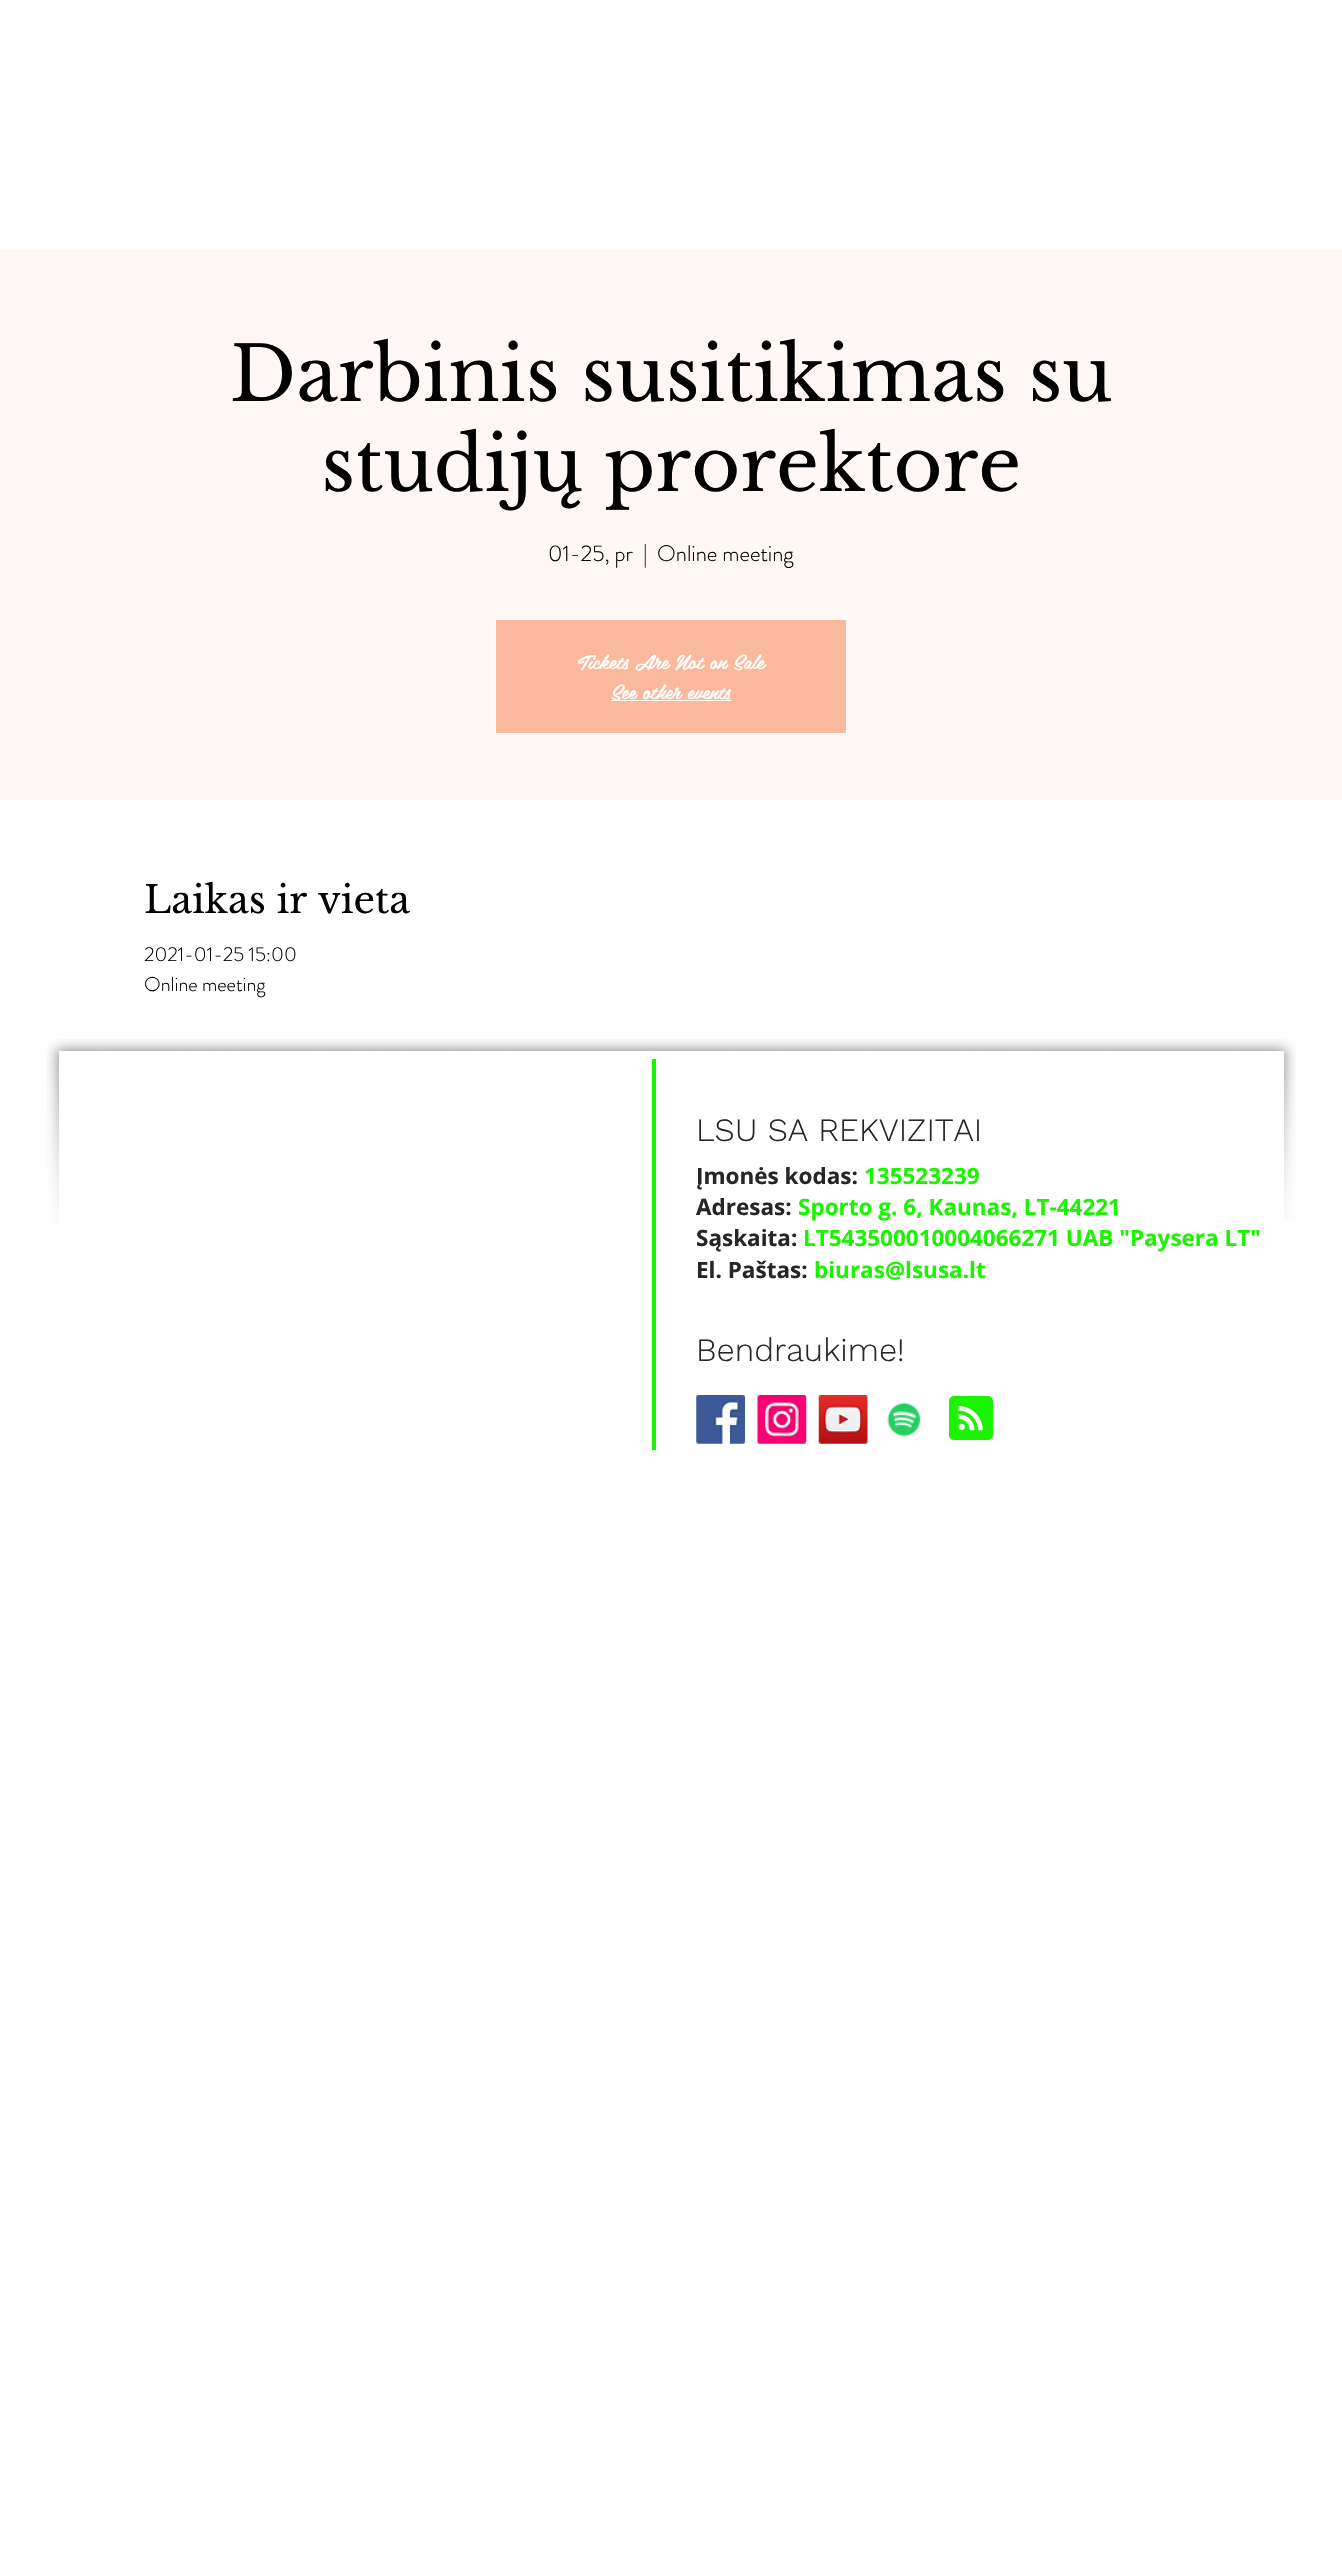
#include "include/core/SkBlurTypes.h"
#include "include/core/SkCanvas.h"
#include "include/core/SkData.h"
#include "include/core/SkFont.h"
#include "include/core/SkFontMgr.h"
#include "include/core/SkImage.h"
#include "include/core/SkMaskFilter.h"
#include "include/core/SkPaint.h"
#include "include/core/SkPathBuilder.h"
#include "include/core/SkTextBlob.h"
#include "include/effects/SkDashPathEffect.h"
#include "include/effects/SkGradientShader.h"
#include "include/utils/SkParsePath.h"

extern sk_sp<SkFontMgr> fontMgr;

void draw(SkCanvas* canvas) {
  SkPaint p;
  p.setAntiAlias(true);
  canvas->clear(SK_ColorWHITE);
  p.setColor(SkColorSetRGB(255, 247, 243));
  canvas->drawRect(SkRect::MakeLTRB(0, 249, 1342, 800), p);
  p.setColor(SkColorSetRGB(250, 184, 157));
  canvas->drawRect(SkRect::MakeLTRB(496, 620, 846, 733), p);
  p.setColor(SK_ColorWHITE);
  canvas->drawRect(SkRect::MakeLTRB(611, 700, 731, 701), p);
  canvas->drawImageRect(SkImages::DeferredFromEncodedData(SkData::MakeFromFileName("images/1.png")), SkRect::MakeLTRB(46, 1039, 103, 1223), SkSamplingOptions());
  canvas->drawImageRect(SkImages::DeferredFromEncodedData(SkData::MakeFromFileName("images/2.png")), SkRect::MakeLTRB(102, 1039, 1240, 1051), SkSamplingOptions());
  canvas->drawImageRect(SkImages::DeferredFromEncodedData(SkData::MakeFromFileName("images/3.png")), SkRect::MakeLTRB(1240, 1039, 1296, 1219), SkSamplingOptions());
  canvas->drawRect(SkRect::MakeLTRB(59, 1051, 1284, 1223), p);
  p.setColor(SkColorSetRGB(27, 244, 0));
  canvas->drawRect(SkRect::MakeLTRB(652, 1059, 656, 1450), p);
  canvas->drawImageRect(SkImages::DeferredFromEncodedData(SkData::MakeFromFileName("images/4.png")), SkRect::MakeLTRB(696, 1395, 745, 1444), SkSamplingOptions());
  canvas->drawImageRect(SkImages::DeferredFromEncodedData(SkData::MakeFromFileName("images/5.png")), SkRect::MakeLTRB(757, 1395, 807, 1444), SkSamplingOptions());
  canvas->drawImageRect(SkImages::DeferredFromEncodedData(SkData::MakeFromFileName("images/6.png")), SkRect::MakeLTRB(818, 1395, 868, 1444), SkSamplingOptions());
  canvas->drawImageRect(SkImages::DeferredFromEncodedData(SkData::MakeFromFileName("images/7.png")), SkRect::MakeLTRB(887, 1402, 921, 1437), SkSamplingOptions());
  canvas->drawImageRect(SkImages::DeferredFromEncodedData(SkData::MakeFromFileName("images/8.png")), SkRect::MakeLTRB(949, 1396, 993, 1440), SkSamplingOptions());
  SkFont font1(fontMgr->matchFamilyStyle("Libre Baskerville", SkFontStyle::Normal()), 75);
  font1.setSubpixel(true);
  p.setColor(SK_ColorBLACK);
  canvas->drawString("Darbinis susitikimas su", 230, 401, font1, p);
  canvas->drawString("studijų prorektore", 321, 491, font1, p);
  SkFont font2(fontMgr->matchFamilyStyle("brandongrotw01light", SkFontStyle(300, SkFontStyle::kNormal_Width, SkFontStyle::kUpright_Slant)), 22.5f);
  font2.setSubpixel(true);
  canvas->drawString("01-25, pr", 548, 561, font2, p);
  canvas->drawString("|", 643, 561, font2, p);
  canvas->drawString("Online meeting", 657, 561, font2, p);
  SkFont font3(fontMgr->matchFamilyStyle("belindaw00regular", SkFontStyle::Normal()), 20);
  font3.setSubpixel(true);
  p.setColor(SK_ColorWHITE);
  canvas->drawString("Tickets Are Not on Sale", 578, 669, font3, p);
  canvas->drawString("See other events", 611, 699, font3, p);
  SkFont font4(fontMgr->matchFamilyStyle("Libre Baskerville", SkFontStyle::Normal()), 37.5f);
  font4.setSubpixel(true);
  p.setColor(SK_ColorBLACK);
  canvas->drawString("Laikas ir vieta", 144, 913, font4, p);
  SkFont font5(fontMgr->matchFamilyStyle("brandongrotw01light", SkFontStyle(300, SkFontStyle::kNormal_Width, SkFontStyle::kUpright_Slant)), 20);
  font5.setSubpixel(true);
  canvas->drawString("2021-01-25 15:00", 144, 961, font5, p);
  canvas->drawString("Online meeting", 144, 991, font5, p);
  SkFont font6(fontMgr->matchFamilyStyle("Work Sans", SkFontStyle(300, SkFontStyle::kNormal_Width, SkFontStyle::kUpright_Slant)), 32.5f);
  font6.setSubpixel(true);
  p.setColor(SkColorSetRGB(37, 38, 37));
  canvas->drawString("LSU SA REKVIZITAI", 696, 1141, font6, p);
  SkFont font7(fontMgr->matchFamilyStyle("Open Sans", SkFontStyle::Bold()), 22.5f);
  font7.setSubpixel(true);
  canvas->drawString("Įmonės kodas:", 696, 1184, font7, p);
  p.setColor(SkColorSetRGB(27, 244, 0));
  canvas->drawString("135523239", 864, 1184, font7, p);
  p.setColor(SkColorSetRGB(37, 38, 37));
  canvas->drawString("Adresas:", 696, 1215, font7, p);
  p.setColor(SkColorSetRGB(27, 244, 0));
  canvas->drawString("Sporto g. 6, Kaunas, LT-44221", 798, 1215, font7, p);
  p.setColor(SkColorSetRGB(37, 38, 37));
  canvas->drawString("Sąskaita:", 696, 1246, font7, p);
  p.setColor(SkColorSetRGB(27, 244, 0));
  canvas->drawString("LT543500010004066271 UAB \"Paysera LT\"", 803, 1246, font7, p);
  p.setColor(SkColorSetRGB(37, 38, 37));
  canvas->drawString("El. Paštas:", 696, 1278, font7, p);
  p.setColor(SkColorSetRGB(27, 244, 0));
  canvas->drawString("biuras@lsusa.lt", 814, 1278, font7, p);
  p.setColor(SkColorSetRGB(37, 38, 37));
  canvas->drawString("Bendraukime!", 696, 1361, font6, p);
}
